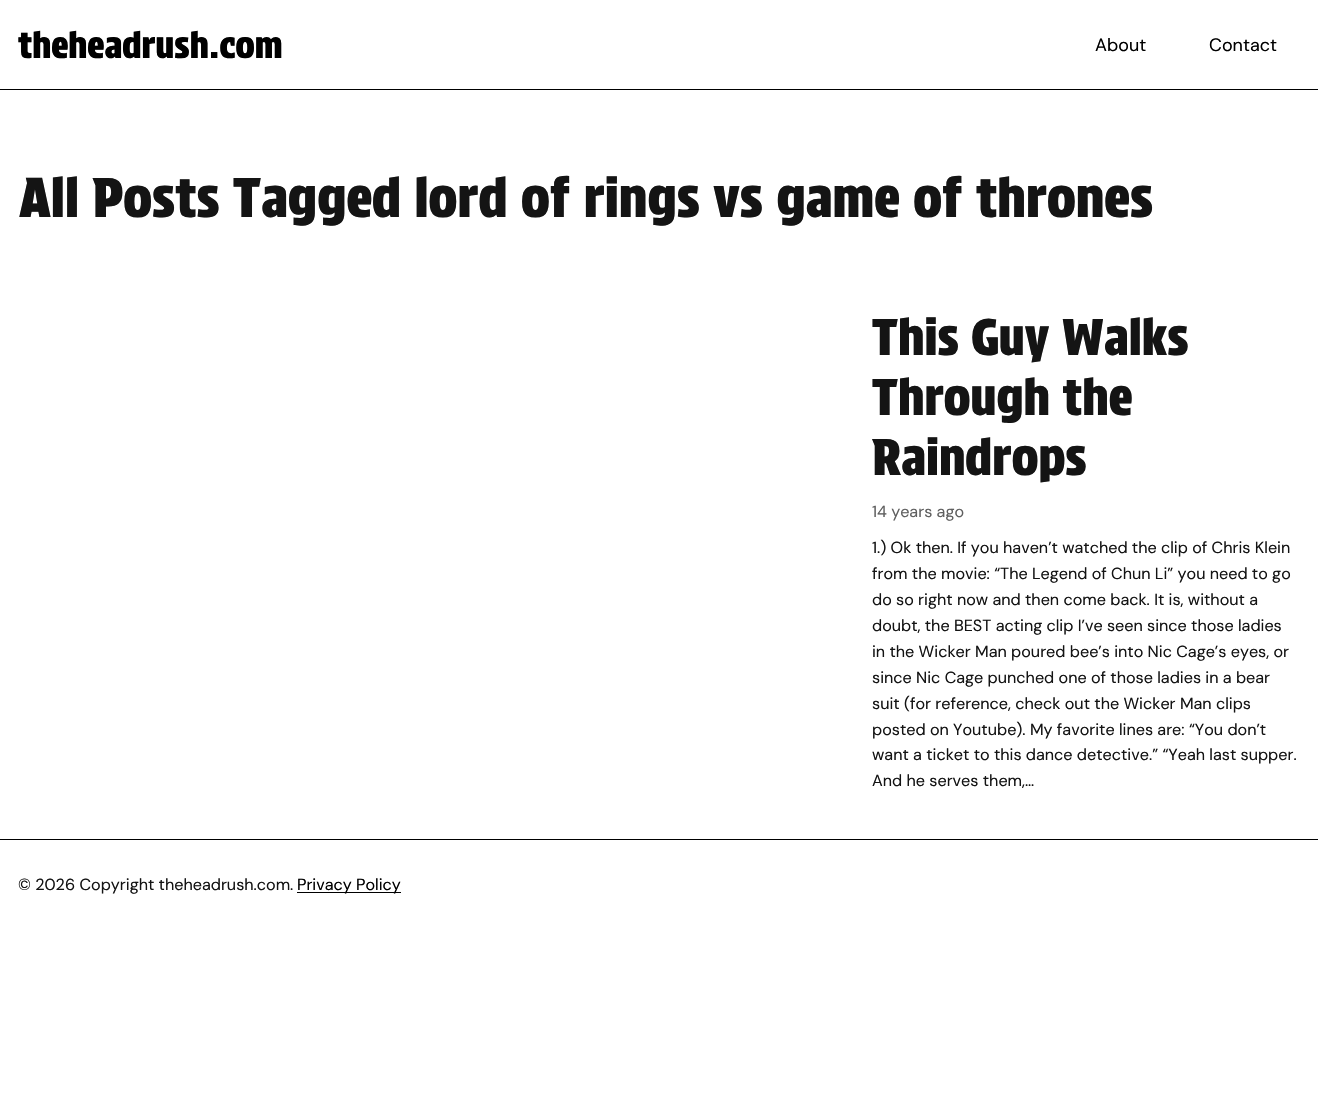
#include "include/core/SkBlurTypes.h"
#include "include/core/SkCanvas.h"
#include "include/core/SkData.h"
#include "include/core/SkFont.h"
#include "include/core/SkFontMgr.h"
#include "include/core/SkImage.h"
#include "include/core/SkMaskFilter.h"
#include "include/core/SkPaint.h"
#include "include/core/SkPathBuilder.h"
#include "include/core/SkTextBlob.h"
#include "include/effects/SkDashPathEffect.h"
#include "include/effects/SkGradientShader.h"
#include "include/utils/SkParsePath.h"

extern sk_sp<SkFontMgr> fontMgr;

void draw(SkCanvas* canvas) {
  SkPaint p;
  p.setAntiAlias(true);
  canvas->clear(SK_ColorWHITE);
  p.setColor(SK_ColorBLACK);
  canvas->drawRect(SkRect::MakeLTRB(0, 89, 1318, 90), p);
  canvas->drawRect(SkRect::MakeLTRB(0, 839, 1318, 840), p);
  canvas->drawRect(SkRect::MakeLTRB(297, 892, 401, 893), p);
  SkFont font1(fontMgr->matchFamilyStyle("Protest Strike", SkFontStyle::Normal()), 36);
  font1.setSubpixel(true);
  canvas->drawString("theheadrush.com", 18, 58, font1, p);
  SkFont font2(fontMgr->matchFamilyStyle("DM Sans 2", SkFontStyle::Normal()), 18);
  font2.setSubpixel(true);
  canvas->drawString("About", 1095, 51, font2, p);
  canvas->drawString("Contact", 1209, 51, font2, p);
  SkFont font3(fontMgr->matchFamilyStyle("Protest Strike", SkFontStyle::Normal()), 54);
  font3.setSubpixel(true);
  p.setColor(SkColorSetRGB(20, 20, 20));
  canvas->drawString("All Posts Tagged lord of rings vs game of thrones", 19, 217, font3, p);
  SkFont font4(fontMgr->matchFamilyStyle("Protest Strike", SkFontStyle::Normal()), 50);
  font4.setSubpixel(true);
  canvas->drawString("This Guy Walks", 872, 355, font4, p);
  canvas->drawString("Through the", 872, 415, font4, p);
  canvas->drawString("Raindrops", 872, 475, font4, p);
  SkFont font5(fontMgr->matchFamilyStyle("DM Sans", SkFontStyle::Normal()), 16.2f);
  font5.setSubpixel(true);
  p.setColor(SkColorSetRGB(95, 95, 95));
  canvas->drawString("14 years ago", 872, 517, font5, p);
  p.setColor(SkColorSetRGB(20, 20, 20));
  canvas->drawString("1.) Ok then. If you haven’t watched the clip of Chris Klein", 872, 553, font5, p);
  canvas->drawString("from the movie: “The Legend of Chun Li” you need to go", 872, 579, font5, p);
  canvas->drawString("do so right now and then come back. It is, without a", 872, 605, font5, p);
  canvas->drawString("doubt, the BEST acting clip I’ve seen since those ladies", 872, 631, font5, p);
  canvas->drawString("in the Wicker Man poured bee’s into Nic Cage’s eyes, or", 872, 657, font5, p);
  canvas->drawString("since Nic Cage punched one of those ladies in a bear", 872, 683, font5, p);
  canvas->drawString("suit (for reference, check out the Wicker Man clips", 872, 709, font5, p);
  canvas->drawString("posted on Youtube). My favorite lines are: “You don’t", 872, 735, font5, p);
  canvas->drawString("want a ticket to this dance detective.” “Yeah last supper.", 872, 760, font5, p);
  canvas->drawString("And he serves them,…", 872, 786, font5, p);
  canvas->drawString("© 2026 Copyright theheadrush.com.", 18, 890, font5, p);
  p.setColor(SK_ColorBLACK);
  canvas->drawString("Privacy Policy", 297, 890, font5, p);
}
